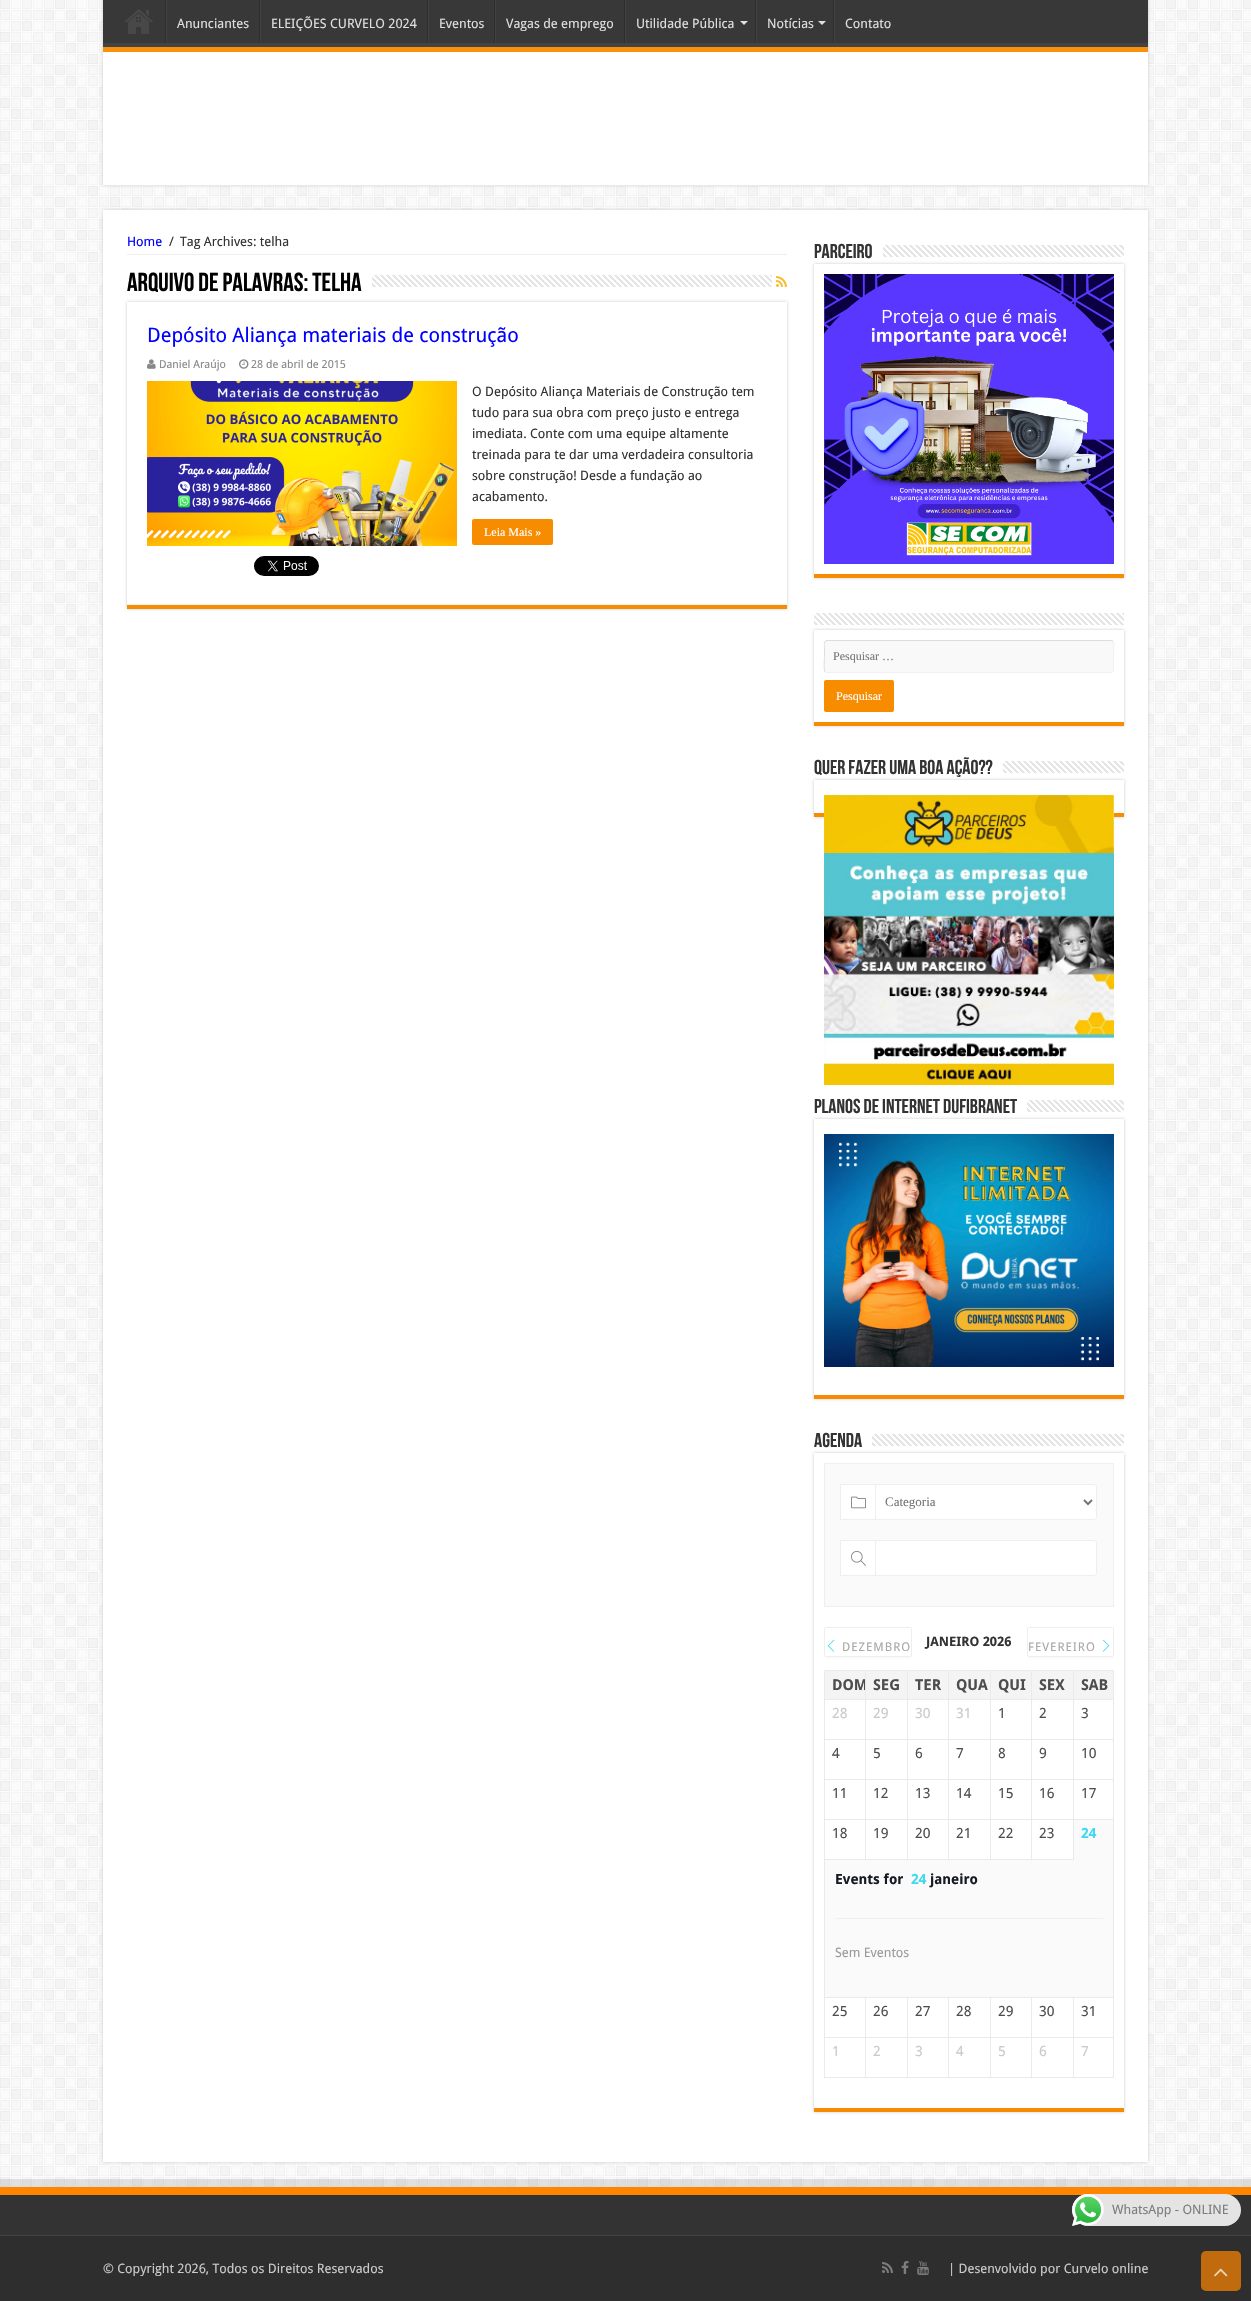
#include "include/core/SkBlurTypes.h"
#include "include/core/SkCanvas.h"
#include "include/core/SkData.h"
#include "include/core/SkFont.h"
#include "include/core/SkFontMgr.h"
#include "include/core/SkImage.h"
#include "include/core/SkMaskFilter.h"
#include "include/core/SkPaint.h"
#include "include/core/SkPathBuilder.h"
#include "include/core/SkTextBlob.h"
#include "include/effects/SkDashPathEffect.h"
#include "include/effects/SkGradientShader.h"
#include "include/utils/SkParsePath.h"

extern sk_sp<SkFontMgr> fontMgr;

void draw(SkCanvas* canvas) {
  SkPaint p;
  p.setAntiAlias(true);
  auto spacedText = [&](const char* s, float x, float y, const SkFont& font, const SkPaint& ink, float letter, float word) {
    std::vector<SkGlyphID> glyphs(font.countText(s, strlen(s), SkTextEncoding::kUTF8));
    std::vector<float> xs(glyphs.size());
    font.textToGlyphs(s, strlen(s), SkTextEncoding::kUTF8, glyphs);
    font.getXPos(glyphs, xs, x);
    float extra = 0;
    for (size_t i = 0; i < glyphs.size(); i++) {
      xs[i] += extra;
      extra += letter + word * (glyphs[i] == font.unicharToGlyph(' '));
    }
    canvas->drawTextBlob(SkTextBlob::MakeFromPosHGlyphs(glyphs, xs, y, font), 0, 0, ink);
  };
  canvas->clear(SK_ColorWHITE);
  canvas->drawImageRect(SkImages::DeferredFromEncodedData(SkData::MakeFromFileName("images/1.png")), SkRect::MakeLTRB(0, 0, 1251, 2187), SkSamplingOptions());
  p.setColor(SkColorSetRGB(202, 202, 202));
  p.setMaskFilter(SkMaskFilter::MakeBlur(kNormal_SkBlurStyle, 1.5f));
  canvas->drawRect(SkRect::MakeLTRB(103, -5, 1148, 185), p);
  p.setMaskFilter(nullptr);
  p.setColor(SK_ColorWHITE);
  canvas->drawRect(SkRect::MakeLTRB(103, 52, 1148, 185), p);
  p.setColor(SkColorSetRGB(56, 56, 56));
  canvas->drawRect(SkRect::MakeLTRB(103, 0, 1148, 43), p);
  canvas->save();
  canvas->clipRect(SkRect::MakeLTRB(103, 0, 1148, 47));
  p.setColor(SkColorSetRGB(67, 67, 67));
  canvas->drawPath(SkPathBuilder(SkPathFillType::kEvenOdd).moveTo(4, -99).lineTo(1247, -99).lineTo(1247, 146).lineTo(4, 146).close().moveTo(102, -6).lineTo(1148, -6).lineTo(1148, 34).cubicTo(1148, 35, 1149, 43, 1147, 43).lineTo(102, 43).lineTo(101, 42).lineTo(101, -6).close().detach(), p);
  canvas->restore();
  p.setColor(SkColorSetRGB(248, 146, 13));
  canvas->drawRect(SkRect::MakeLTRB(103, 47, 1148, 52), p);
  canvas->drawImageRect(SkImages::DeferredFromEncodedData(SkData::MakeFromFileName("images/2.png")), SkRect::MakeLTRB(124, 9, 153, 34), SkSamplingOptions());
  p.setColor(SkColorSetRGB(45, 45, 45));
  canvas->drawRect(SkRect::MakeLTRB(165, 0, 166, 42), p);
  p.setColor(SkColorSetRGB(66, 66, 66));
  canvas->drawRect(SkRect::MakeLTRB(166, 0, 167, 42), p);
  p.setColor(SkColorSetRGB(45, 45, 45));
  canvas->drawRect(SkRect::MakeLTRB(259, 0, 260, 42), p);
  p.setColor(SkColorSetRGB(66, 66, 66));
  canvas->drawRect(SkRect::MakeLTRB(260, 0, 261, 42), p);
  p.setColor(SkColorSetRGB(45, 45, 45));
  canvas->drawRect(SkRect::MakeLTRB(427, 0, 428, 42), p);
  p.setColor(SkColorSetRGB(66, 66, 66));
  canvas->drawRect(SkRect::MakeLTRB(428, 0, 429, 42), p);
  p.setColor(SkColorSetRGB(45, 45, 45));
  canvas->drawRect(SkRect::MakeLTRB(494, 0, 495, 42), p);
  p.setColor(SkColorSetRGB(66, 66, 66));
  canvas->drawRect(SkRect::MakeLTRB(495, 0, 496, 42), p);
  p.setColor(SkColorSetRGB(45, 45, 45));
  canvas->drawRect(SkRect::MakeLTRB(624, 0, 625, 42), p);
  p.setColor(SkColorSetRGB(66, 66, 66));
  canvas->drawRect(SkRect::MakeLTRB(625, 0, 626, 42), p);
  p.setColor(SkColorSetRGB(223, 223, 223));
  canvas->drawPath(SkPathBuilder().moveTo(740, 21).lineTo(748, 21).lineTo(744, 25).close().detach(), p);
  p.setColor(SkColorSetRGB(45, 45, 45));
  canvas->drawRect(SkRect::MakeLTRB(755, 0, 756, 42), p);
  p.setColor(SkColorSetRGB(66, 66, 66));
  canvas->drawRect(SkRect::MakeLTRB(756, 0, 757, 42), p);
  p.setColor(SkColorSetRGB(223, 223, 223));
  canvas->drawPath(SkPathBuilder().moveTo(818, 21).lineTo(826, 21).lineTo(822, 25).close().detach(), p);
  p.setColor(SkColorSetRGB(45, 45, 45));
  canvas->drawRect(SkRect::MakeLTRB(833, 0, 834, 42), p);
  p.setColor(SkColorSetRGB(66, 66, 66));
  canvas->drawRect(SkRect::MakeLTRB(834, 0, 835, 42), p);
  p.setColor(SkColorSetRGB(202, 202, 202));
  p.setMaskFilter(SkMaskFilter::MakeBlur(kNormal_SkBlurStyle, 1.5f));
  canvas->drawRect(SkRect::MakeLTRB(103, 210, 1148, 2162), p);
  p.setMaskFilter(nullptr);
  p.setColor(SK_ColorWHITE);
  canvas->drawRect(SkRect::MakeLTRB(103, 210, 1148, 2162), p);
  p.setColor(SkColorSetRGB(238, 238, 238));
  canvas->drawRect(SkRect::MakeLTRB(127, 254, 787, 255), p);
  canvas->drawImageRect(SkImages::DeferredFromEncodedData(SkData::MakeFromFileName("images/3.png")), SkRect::MakeLTRB(372, 275, 772, 287), SkSamplingOptions());
  canvas->drawImageRect(SkImages::DeferredFromEncodedData(SkData::MakeFromFileName("images/4.png")), SkRect::MakeLTRB(776, 276, 787, 287), SkSamplingOptions());
  canvas->save();
  canvas->clipPath(SkPathBuilder(SkPathFillType::kEvenOdd).moveTo(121, 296).lineTo(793, 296).lineTo(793, 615).lineTo(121, 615).close().moveTo(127, 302).lineTo(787, 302).lineTo(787, 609).lineTo(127, 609).close().detach(), true);
  p.setColor(SkColorSetRGB(202, 202, 202));
  p.setMaskFilter(SkMaskFilter::MakeBlur(kNormal_SkBlurStyle, 1.5f));
  canvas->drawRect(SkRect::MakeLTRB(127, 302, 787, 609), p);
  p.setMaskFilter(nullptr);
  canvas->restore();
  p.setColor(SkColorSetRGB(248, 140, 0));
  canvas->drawRect(SkRect::MakeLTRB(127, 605, 787, 609), p);
  p.setColor(SkColorSetRGB(242, 242, 242));
  canvas->drawRect(SkRect::MakeLTRB(127, 604, 787, 605), p);
  canvas->drawImageRect(SkImages::DeferredFromEncodedData(SkData::MakeFromFileName("images/5.png")), SkRect::MakeLTRB(147, 359, 156, 369), SkSamplingOptions());
  canvas->drawImageRect(SkImages::DeferredFromEncodedData(SkData::MakeFromFileName("images/6.png")), SkRect::MakeLTRB(239, 359, 249, 369), SkSamplingOptions());
  canvas->drawImageRect(SkImages::DeferredFromEncodedData(SkData::MakeFromFileName("images/7.png")), SkRect::MakeLTRB(147, 381, 457, 546), SkSamplingOptions());
  p.setColor(SkColorSetRGB(248, 140, 0));
  canvas->drawRoundRect(SkRect::MakeLTRB(472, 519, 553, 545), 2, 2, p);
  canvas->drawImageRect(SkImages::DeferredFromEncodedData(SkData::MakeFromFileName("images/8.png")), SkRect::MakeLTRB(254, 556, 319, 576), SkSamplingOptions());
  canvas->drawImageRect(SkImages::DeferredFromEncodedData(SkData::MakeFromFileName("images/9.png")), SkRect::MakeLTRB(883, 245, 1124, 257), SkSamplingOptions());
  canvas->save();
  canvas->clipPath(SkPathBuilder(SkPathFillType::kEvenOdd).moveTo(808, 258).lineTo(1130, 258).lineTo(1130, 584).lineTo(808, 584).close().moveTo(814, 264).lineTo(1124, 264).lineTo(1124, 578).lineTo(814, 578).close().detach(), true);
  p.setColor(SkColorSetRGB(202, 202, 202));
  p.setMaskFilter(SkMaskFilter::MakeBlur(kNormal_SkBlurStyle, 1.5f));
  canvas->drawRect(SkRect::MakeLTRB(814, 264, 1124, 578), p);
  p.setMaskFilter(nullptr);
  canvas->restore();
  p.setColor(SkColorSetRGB(248, 140, 0));
  canvas->drawRect(SkRect::MakeLTRB(814, 574, 1124, 578), p);
  canvas->drawImageRect(SkImages::DeferredFromEncodedData(SkData::MakeFromFileName("images/10.png")), SkRect::MakeLTRB(824, 274, 1114, 564), SkSamplingOptions());
  canvas->save();
  canvas->clipPath(SkPathBuilder(SkPathFillType::kEvenOdd).moveTo(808, 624).lineTo(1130, 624).lineTo(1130, 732).lineTo(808, 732).close().moveTo(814, 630).lineTo(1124, 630).lineTo(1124, 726).lineTo(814, 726).close().detach(), true);
  p.setColor(SkColorSetRGB(202, 202, 202));
  p.setMaskFilter(SkMaskFilter::MakeBlur(kNormal_SkBlurStyle, 1.5f));
  canvas->drawRect(SkRect::MakeLTRB(814, 630, 1124, 726), p);
  p.setMaskFilter(nullptr);
  canvas->restore();
  canvas->drawImageRect(SkImages::DeferredFromEncodedData(SkData::MakeFromFileName("images/11.png")), SkRect::MakeLTRB(814, 613, 1124, 625), SkSamplingOptions());
  p.setColor(SkColorSetRGB(248, 140, 0));
  canvas->drawRect(SkRect::MakeLTRB(814, 722, 1124, 726), p);
  p.setColor(SkColorSetRGB(249, 249, 249));
  canvas->drawRoundRect(SkRect::MakeLTRB(824, 640, 1114, 673), 3, 3, p);
  p.setStyle(SkPaint::kStroke_Style);
  p.setStrokeWidth(1);
  p.setColor(SkColorSetRGB(241, 241, 241));
  canvas->drawPath(SkPathBuilder().moveTo(1113, 641).cubicTo(1114.5f, 643, 1113.5f, 654, 1113.5f, 656.5f).lineTo(1113.5f, 665.5f).cubicTo(1113.5f, 667.5f, 1114.5f, 672.5f, 1111, 672.5f).lineTo(827, 672.5f).lineTo(825, 672).detach(), p);
  p.setColor(SkColorSetRGB(221, 221, 221));
  canvas->drawPath(SkPathBuilder().moveTo(825, 672).cubicTo(823.5f, 670, 824.5f, 659, 824.5f, 656.5f).lineTo(824.5f, 647.5f).cubicTo(824.5f, 645.5f, 823.5f, 640.5f, 827, 640.5f).lineTo(1111, 640.5f).lineTo(1113, 641).detach(), p);
  p.setStyle(SkPaint::kFill_Style);
  p.setColor(SkColorSetRGB(248, 140, 0));
  canvas->drawRoundRect(SkRect::MakeLTRB(824, 680, 894, 712), 2, 2, p);
  canvas->drawImageRect(SkImages::DeferredFromEncodedData(SkData::MakeFromFileName("images/12.png")), SkRect::MakeLTRB(1003, 761, 1124, 773), SkSamplingOptions());
  canvas->save();
  canvas->clipPath(SkPathBuilder(SkPathFillType::kEvenOdd).moveTo(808, 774).lineTo(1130, 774).lineTo(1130, 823).lineTo(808, 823).close().moveTo(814, 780).lineTo(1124, 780).lineTo(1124, 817).lineTo(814, 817).close().detach(), true);
  p.setColor(SkColorSetRGB(202, 202, 202));
  p.setMaskFilter(SkMaskFilter::MakeBlur(kNormal_SkBlurStyle, 1.5f));
  canvas->drawRect(SkRect::MakeLTRB(814, 780, 1124, 817), p);
  p.setMaskFilter(nullptr);
  canvas->restore();
  p.setColor(SkColorSetRGB(248, 140, 0));
  canvas->drawRect(SkRect::MakeLTRB(814, 813, 1124, 817), p);
  canvas->drawImageRect(SkImages::DeferredFromEncodedData(SkData::MakeFromFileName("images/13.png")), SkRect::MakeLTRB(824, 795, 1114, 1085), SkSamplingOptions());
  canvas->drawImageRect(SkImages::DeferredFromEncodedData(SkData::MakeFromFileName("images/14.png")), SkRect::MakeLTRB(1027, 1100, 1124, 1112), SkSamplingOptions());
  canvas->save();
  canvas->clipPath(SkPathBuilder(SkPathFillType::kEvenOdd).moveTo(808, 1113).lineTo(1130, 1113).lineTo(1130, 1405).lineTo(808, 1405).close().moveTo(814, 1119).lineTo(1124, 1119).lineTo(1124, 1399).lineTo(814, 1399).close().detach(), true);
  p.setColor(SkColorSetRGB(202, 202, 202));
  p.setMaskFilter(SkMaskFilter::MakeBlur(kNormal_SkBlurStyle, 1.5f));
  canvas->drawRect(SkRect::MakeLTRB(814, 1119, 1124, 1399), p);
  p.setMaskFilter(nullptr);
  canvas->restore();
  p.setColor(SkColorSetRGB(248, 140, 0));
  canvas->drawRect(SkRect::MakeLTRB(814, 1395, 1124, 1399), p);
  canvas->drawImageRect(SkImages::DeferredFromEncodedData(SkData::MakeFromFileName("images/15.png")), SkRect::MakeLTRB(824, 1134, 1114, 1367), SkSamplingOptions());
  canvas->drawImageRect(SkImages::DeferredFromEncodedData(SkData::MakeFromFileName("images/16.png")), SkRect::MakeLTRB(872, 1434, 1124, 1446), SkSamplingOptions());
  canvas->save();
  canvas->clipPath(SkPathBuilder(SkPathFillType::kEvenOdd).moveTo(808, 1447).lineTo(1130, 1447).lineTo(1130, 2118).lineTo(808, 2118).close().moveTo(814, 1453).lineTo(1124, 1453).lineTo(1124, 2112).lineTo(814, 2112).close().detach(), true);
  p.setColor(SkColorSetRGB(202, 202, 202));
  p.setMaskFilter(SkMaskFilter::MakeBlur(kNormal_SkBlurStyle, 1.5f));
  canvas->drawRect(SkRect::MakeLTRB(814, 1453, 1124, 2112), p);
  p.setMaskFilter(nullptr);
  canvas->restore();
  p.setColor(SkColorSetRGB(248, 140, 0));
  canvas->drawRect(SkRect::MakeLTRB(814, 2108, 1124, 2112), p);
  p.setColor(SkColorSetRGB(250, 250, 250));
  canvas->drawRect(SkRect::MakeLTRB(824.5f, 1463.5f, 1113.5f, 1606.5f), p);
  p.setStyle(SkPaint::kStroke_Style);
  p.setColor(SkColorSetRGB(239, 239, 239));
  canvas->drawRect(SkRect::MakeLTRB(824.5f, 1463.5f, 1113.5f, 1606.5f), p);
  p.setStyle(SkPaint::kFill_Style);
  p.setColor(SK_ColorWHITE);
  canvas->drawRect(SkRect::MakeLTRB(840.5f, 1484.5f, 875.5f, 1519.5f), p);
  p.setStyle(SkPaint::kStroke_Style);
  p.setColor(SkColorSetRGB(239, 239, 239));
  canvas->drawRect(SkRect::MakeLTRB(840.5f, 1484.5f, 875.5f, 1519.5f), p);
  canvas->drawImageRect(SkImages::DeferredFromEncodedData(SkData::MakeFromFileName("images/17.png")), SkRect::MakeLTRB(851, 1496, 866, 1509), SkSamplingOptions());
  p.setStyle(SkPaint::kFill_Style);
  p.setColor(SK_ColorWHITE);
  canvas->drawRoundRect(SkRect::MakeLTRB(875.5f, 1484.5f, 1096.5f, 1519.5f), 2.5f, 2.5f, p);
  p.setStyle(SkPaint::kStroke_Style);
  p.setColor(SkColorSetRGB(239, 239, 239));
  canvas->drawRoundRect(SkRect::MakeLTRB(875.5f, 1484.5f, 1096.5f, 1519.5f), 2.5f, 2.5f, p);
  p.setStrokeWidth(2);
  p.setColor(SkColorSetRGB(119, 119, 119));
  canvas->drawPath(SkPathBuilder().moveTo(1084, 1500).lineTo(1088, 1504).lineTo(1092, 1500).detach(), p);
  p.setStyle(SkPaint::kFill_Style);
  p.setColor(SK_ColorWHITE);
  canvas->drawRect(SkRect::MakeLTRB(840.5f, 1540.5f, 875.5f, 1575.5f), p);
  p.setStyle(SkPaint::kStroke_Style);
  p.setStrokeWidth(1);
  p.setColor(SkColorSetRGB(239, 239, 239));
  canvas->drawRect(SkRect::MakeLTRB(840.5f, 1540.5f, 875.5f, 1575.5f), p);
  canvas->drawImageRect(SkImages::DeferredFromEncodedData(SkData::MakeFromFileName("images/18.png")), SkRect::MakeLTRB(851, 1551, 866, 1566), SkSamplingOptions());
  p.setStyle(SkPaint::kFill_Style);
  p.setColor(SK_ColorWHITE);
  canvas->drawRoundRect(SkRect::MakeLTRB(875.5f, 1540.5f, 1096.5f, 1575.5f), 2.5f, 2.5f, p);
  p.setStyle(SkPaint::kStroke_Style);
  p.setColor(SkColorSetRGB(239, 239, 239));
  canvas->drawRoundRect(SkRect::MakeLTRB(875.5f, 1540.5f, 1096.5f, 1575.5f), 2.5f, 2.5f, p);
  p.setStyle(SkPaint::kFill_Style);
  p.setColor(SkColorSetRGB(251, 251, 251));
  canvas->drawPath(SkPathBuilder().moveTo(824, 1655).lineTo(824, 1657).cubicTo(824, 1658, 825, 1659, 826, 1659).lineTo(910, 1659).cubicTo(911, 1659, 912, 1658, 912, 1657).lineTo(912, 1655).cubicTo(912, 1656, 911, 1657, 910, 1657).lineTo(826, 1657).cubicTo(825, 1657, 824, 1656, 824, 1655).close().detach(), p);
  p.setStyle(SkPaint::kStroke_Style);
  p.setColor(SkColorSetRGB(238, 238, 238));
  canvas->drawRoundRect(SkRect::MakeLTRB(824.5f, 1627.5f, 911.5f, 1656.5f), 1.5f, 1.5f, p);
  canvas->drawImageRect(SkImages::DeferredFromEncodedData(SkData::MakeFromFileName("images/19.png")), SkRect::MakeLTRB(827, 1639, 835, 1652), SkSamplingOptions());
  p.setStyle(SkPaint::kFill_Style);
  p.setColor(SkColorSetRGB(251, 251, 251));
  canvas->drawPath(SkPathBuilder().moveTo(1027, 1655).lineTo(1027, 1657).cubicTo(1027, 1658, 1028, 1659, 1029, 1659).lineTo(1112, 1659).cubicTo(1113, 1659, 1114, 1658, 1114, 1657).lineTo(1114, 1655).cubicTo(1114, 1656, 1113, 1657, 1112, 1657).lineTo(1029, 1657).cubicTo(1028, 1657, 1027, 1656, 1027, 1655).close().detach(), p);
  p.setStyle(SkPaint::kStroke_Style);
  p.setColor(SkColorSetRGB(238, 238, 238));
  canvas->drawRoundRect(SkRect::MakeLTRB(1027.5f, 1627.5f, 1113.5f, 1656.5f), 1.5f, 1.5f, p);
  canvas->drawImageRect(SkImages::DeferredFromEncodedData(SkData::MakeFromFileName("images/20.png")), SkRect::MakeLTRB(1102, 1639, 1110, 1652), SkSamplingOptions());
  p.setStyle(SkPaint::kFill_Style);
  p.setColor(SkColorSetRGB(244, 244, 244));
  canvas->drawRect(SkRect::MakeLTRB(825, 1671, 865, 1699), p);
  p.setColor(SkColorSetRGB(234, 234, 234));
  canvas->drawRect(SkRect::MakeLTRB(824, 1670, 1073, 1671), p);
  canvas->drawRect(SkRect::MakeLTRB(824, 1699, 1073, 1700), p);
  canvas->drawRect(SkRect::MakeLTRB(824, 1670, 825, 1700), p);
  p.setColor(SkColorSetRGB(244, 244, 244));
  canvas->drawRect(SkRect::MakeLTRB(908, 1671, 948, 1699), p);
  p.setColor(SkColorSetRGB(234, 234, 234));
  canvas->drawRect(SkRect::MakeLTRB(907, 1670, 908, 1700), p);
  p.setColor(SkColorSetRGB(244, 244, 244));
  canvas->drawRect(SkRect::MakeLTRB(949, 1671, 990, 1699), p);
  p.setColor(SkColorSetRGB(234, 234, 234));
  canvas->drawRect(SkRect::MakeLTRB(948, 1670, 949, 1700), p);
  p.setColor(SkColorSetRGB(244, 244, 244));
  canvas->drawRect(SkRect::MakeLTRB(991, 1671, 1031, 1699), p);
  p.setColor(SkColorSetRGB(234, 234, 234));
  canvas->drawRect(SkRect::MakeLTRB(990, 1670, 991, 1700), p);
  p.setColor(SkColorSetRGB(244, 244, 244));
  canvas->drawRect(SkRect::MakeLTRB(1032, 1671, 1073, 1699), p);
  p.setColor(SkColorSetRGB(234, 234, 234));
  canvas->drawRect(SkRect::MakeLTRB(1031, 1670, 1032, 1700), p);
  p.setColor(SkColorSetRGB(244, 244, 244));
  canvas->drawRect(SkRect::MakeLTRB(1073.5f, 1670.5f, 1113.5f, 1699.5f), p);
  p.setStyle(SkPaint::kStroke_Style);
  p.setColor(SkColorSetRGB(234, 234, 234));
  canvas->drawRect(SkRect::MakeLTRB(1073.5f, 1670.5f, 1113.5f, 1699.5f), p);
  p.setStyle(SkPaint::kFill_Style);
  canvas->drawRect(SkRect::MakeLTRB(824, 1739, 1073, 1740), p);
  canvas->drawRect(SkRect::MakeLTRB(824, 1700, 825, 1740), p);
  canvas->drawRect(SkRect::MakeLTRB(865, 1700, 866, 1740), p);
  canvas->drawRect(SkRect::MakeLTRB(907, 1700, 908, 1740), p);
  canvas->drawRect(SkRect::MakeLTRB(948, 1700, 949, 1740), p);
  canvas->drawRect(SkRect::MakeLTRB(990, 1700, 991, 1740), p);
  canvas->drawRect(SkRect::MakeLTRB(1031, 1700, 1032, 1740), p);
  canvas->drawRect(SkRect::MakeLTRB(1113, 1700, 1114, 1860), p);
  canvas->drawRect(SkRect::MakeLTRB(1073, 1739, 1114, 1740), p);
  canvas->drawRect(SkRect::MakeLTRB(1073, 1700, 1074, 1740), p);
  canvas->drawRect(SkRect::MakeLTRB(824, 1779, 1114, 1780), p);
  canvas->drawRect(SkRect::MakeLTRB(824, 1740, 825, 1780), p);
  canvas->drawRect(SkRect::MakeLTRB(865, 1740, 866, 1780), p);
  canvas->drawRect(SkRect::MakeLTRB(907, 1740, 908, 1780), p);
  canvas->drawRect(SkRect::MakeLTRB(948, 1740, 949, 1780), p);
  canvas->drawRect(SkRect::MakeLTRB(990, 1740, 991, 1780), p);
  canvas->drawRect(SkRect::MakeLTRB(1031, 1740, 1032, 1780), p);
  canvas->drawRect(SkRect::MakeLTRB(1073, 1740, 1074, 1780), p);
  canvas->drawRect(SkRect::MakeLTRB(824, 1819, 1114, 1820), p);
  canvas->drawRect(SkRect::MakeLTRB(824, 1780, 825, 1820), p);
  canvas->drawRect(SkRect::MakeLTRB(865, 1780, 866, 1820), p);
  canvas->drawRect(SkRect::MakeLTRB(907, 1780, 908, 1820), p);
  canvas->drawRect(SkRect::MakeLTRB(948, 1780, 949, 1820), p);
  canvas->drawRect(SkRect::MakeLTRB(990, 1780, 991, 1820), p);
  canvas->drawRect(SkRect::MakeLTRB(1031, 1780, 1032, 1820), p);
  canvas->drawRect(SkRect::MakeLTRB(1073, 1780, 1074, 1860), p);
  canvas->drawRect(SkRect::MakeLTRB(824, 1859, 1073, 1860), p);
  canvas->drawRect(SkRect::MakeLTRB(824, 1820, 825, 1860), p);
  canvas->drawRect(SkRect::MakeLTRB(865, 1820, 866, 1860), p);
  canvas->drawRect(SkRect::MakeLTRB(907, 1820, 908, 1860), p);
  canvas->drawRect(SkRect::MakeLTRB(948, 1820, 949, 1860), p);
  canvas->drawRect(SkRect::MakeLTRB(990, 1820, 991, 1860), p);
  canvas->drawRect(SkRect::MakeLTRB(1031, 1820, 1032, 1860), p);
  p.setColor(SkColorSetRGB(250, 250, 250));
  canvas->drawRect(SkRect::MakeLTRB(1074, 1820, 1113, 1860), p);
  canvas->drawRect(SkRect::MakeLTRB(825, 1860, 1113, 1997), p);
  p.setColor(SkColorSetRGB(234, 234, 234));
  canvas->drawRect(SkRect::MakeLTRB(1113, 1860, 1114, 2078), p);
  canvas->drawRect(SkRect::MakeLTRB(824, 1997, 1114, 1998), p);
  canvas->drawRect(SkRect::MakeLTRB(824, 1860, 825, 1998), p);
  p.setColor(SkColorSetRGB(239, 239, 239));
  canvas->drawRect(SkRect::MakeLTRB(835, 1918, 1103, 1919), p);
  p.setColor(SkColorSetRGB(234, 234, 234));
  canvas->drawRect(SkRect::MakeLTRB(824, 2037, 1114, 2038), p);
  canvas->drawRect(SkRect::MakeLTRB(824, 1998, 825, 2038), p);
  canvas->drawRect(SkRect::MakeLTRB(865, 1998, 866, 2038), p);
  canvas->drawRect(SkRect::MakeLTRB(907, 1998, 908, 2038), p);
  canvas->drawRect(SkRect::MakeLTRB(948, 1998, 949, 2038), p);
  canvas->drawRect(SkRect::MakeLTRB(990, 1998, 991, 2038), p);
  canvas->drawRect(SkRect::MakeLTRB(1031, 1998, 1032, 2038), p);
  canvas->drawRect(SkRect::MakeLTRB(1073, 1998, 1074, 2038), p);
  canvas->drawRect(SkRect::MakeLTRB(824, 2077, 1114, 2078), p);
  canvas->drawRect(SkRect::MakeLTRB(824, 2038, 825, 2078), p);
  canvas->drawRect(SkRect::MakeLTRB(865, 2038, 866, 2078), p);
  canvas->drawRect(SkRect::MakeLTRB(907, 2038, 908, 2078), p);
  canvas->drawRect(SkRect::MakeLTRB(948, 2038, 949, 2078), p);
  canvas->drawRect(SkRect::MakeLTRB(990, 2038, 991, 2078), p);
  canvas->drawRect(SkRect::MakeLTRB(1031, 2038, 1032, 2078), p);
  canvas->drawRect(SkRect::MakeLTRB(1073, 2038, 1074, 2078), p);
  p.setColor(SkColorSetARGB(26, 0, 0, 0));
  canvas->drawRect(SkRect::MakeLTRB(0, 2179, 1251, 2187), p);
  p.setColor(SkColorSetRGB(51, 51, 51));
  canvas->drawRect(SkRect::MakeLTRB(0, 2195, 1251, 2235), p);
  p.setColor(SkColorSetRGB(255, 133, 0));
  canvas->drawRect(SkRect::MakeLTRB(0, 2187, 1251, 2195), p);
  p.setColor(SkColorSetRGB(46, 46, 46));
  canvas->drawRect(SkRect::MakeLTRB(0, 2236, 1251, 2301), p);
  p.setColor(SkColorSetRGB(68, 68, 68));
  canvas->drawRect(SkRect::MakeLTRB(0, 2235, 1251, 2236), p);
  canvas->drawImageRect(SkImages::DeferredFromEncodedData(SkData::MakeFromFileName("images/21.png")), SkRect::MakeLTRB(882, 2262, 893, 2273), SkSamplingOptions());
  canvas->drawImageRect(SkImages::DeferredFromEncodedData(SkData::MakeFromFileName("images/22.png")), SkRect::MakeLTRB(901, 2261, 909, 2274), SkSamplingOptions());
  canvas->drawImageRect(SkImages::DeferredFromEncodedData(SkData::MakeFromFileName("images/23.png")), SkRect::MakeLTRB(917, 2261, 929, 2275), SkSamplingOptions());
  p.setColor(SkColorSetRGB(228, 228, 228));
  canvas->drawRoundRect(SkRect::MakeLTRB(1072, 2194, 1241, 2226), 16, 16, p);
  canvas->drawImageRect(SkImages::DeferredFromEncodedData(SkData::MakeFromFileName("images/24.png")), SkRect::MakeLTRB(1072, 2194, 1104, 2226), SkSamplingOptions());
  p.setColor(SkColorSetRGB(192, 107, 14));
  canvas->drawRoundRect(SkRect::MakeLTRB(1201, 2251, 1241, 2291), 5, 5, p);
  canvas->drawImageRect(SkImages::DeferredFromEncodedData(SkData::MakeFromFileName("images/25.png")), SkRect::MakeLTRB(1214, 2268, 1228, 2277), SkSamplingOptions());
  SkFont font1(fontMgr->matchFamilyStyle("Droid Sans", SkFontStyle::Normal()), 13);
  font1.setSubpixel(true);
  p.setColor(SkColorSetRGB(223, 223, 223));
  canvas->drawString("Anunciantes", 177, 28, font1, p);
  canvas->drawString("ELEIÇÕES CURVELO 2024", 271, 28, font1, p);
  canvas->drawString("Eventos", 439, 28, font1, p);
  canvas->drawString("Vagas de emprego", 506, 28, font1, p);
  canvas->drawString("Utilidade Pública", 636, 28, font1, p);
  canvas->drawString("Notícias", 767, 28, font1, p);
  canvas->drawString("Contato", 845, 28, font1, p);
  p.setColor(SkColorSetRGB(0, 0, 255));
  canvas->drawString("Home", 127, 246, font1, p);
  p.setColor(SkColorSetRGB(51, 51, 51));
  canvas->drawString("/", 169, 246, font1, p);
  canvas->drawString("Tag Archives: telha", 180, 246, font1, p);
  SkFont font2(fontMgr->matchFamilyStyle("Bebas Neue", SkFontStyle::Normal()), 26);
  font2.setSubpixel(true);
  p.setColor(SK_ColorBLACK);
  canvas->drawString("Arquivo de palavras: telha", 127, 291, font2, p);
  SkFont font3(fontMgr->matchFamilyStyle("Droid Sans", SkFontStyle::Normal()), 20);
  font3.setSubpixel(true);
  p.setColor(SkColorSetRGB(0, 0, 255));
  canvas->drawString("Depósito Aliança materiais de construção", 147, 342, font3, p);
  SkFont font4(fontMgr->matchFamilyStyle("Droid Sans", SkFontStyle::Normal()), 11);
  font4.setSubpixel(true);
  p.setColor(SkColorSetRGB(136, 136, 136));
  canvas->drawString("Daniel Araújo", 159, 368, font4, p);
  canvas->drawString("28 de abril de 2015", 251, 368, font4, p);
  p.setColor(SkColorSetRGB(51, 51, 51));
  canvas->drawString("O Depósito Aliança Materiais de Construção tem", 472, 396, font1, p);
  canvas->drawString("tudo para sua obra com preço justo e entrega", 472, 417, font1, p);
  canvas->drawString("imediata. Conte com uma equipe altamente", 472, 438, font1, p);
  canvas->drawString("treinada para te dar uma verdadeira consultoria", 472, 459, font1, p);
  canvas->drawString("sobre construção! Desde a fundação ao", 472, 480, font1, p);
  canvas->drawString("acabamento.", 472, 501, font1, p);
  SkFont font5(fontMgr->matchFamilyStyle("Liberation Serif", SkFontStyle::Normal()), 12);
  font5.setSubpixel(true);
  p.setColor(SK_ColorWHITE);
  canvas->drawString("Leia Mais »", 484, 536, font5, p);
  SkFont font6(fontMgr->matchFamilyStyle("Bebas Neue", SkFontStyle::Normal()), 20);
  font6.setSubpixel(true);
  p.setColor(SkColorSetRGB(51, 51, 51));
  canvas->drawString("Parceiro", 814, 258, font6, p);
  p.setColor(SkColorSetRGB(117, 117, 117));
  canvas->drawString("Pesquisar …", 833, 660, font5, p);
  p.setColor(SK_ColorWHITE);
  canvas->drawString("Pesquisar", 836, 700, font5, p);
  p.setColor(SkColorSetRGB(51, 51, 51));
  canvas->drawString("Quer fazer uma boa ação?\077", 814, 774, font6, p);
  canvas->drawString("Planos de internet DUFIBRANET", 814, 1113, font6, p);
  canvas->drawString("Agenda", 814, 1447, font6, p);
  SkFont font7(fontMgr->matchFamilyStyle("Liberation Serif", SkFontStyle::Normal()), 13);
  font7.setSubpixel(true);
  p.setColor(SkColorSetRGB(117, 117, 117));
  canvas->drawString("Categoria", 885, 1506, font7, p);
  SkFont font8(fontMgr->matchFamilyStyle("Droid Sans", SkFontStyle::Normal()), 12);
  font8.setSubpixel(true);
  p.setColor(SkColorSetRGB(169, 169, 169));
  spacedText("DEZEMBRO", 842, 1651, font8, p, 1, 0);
  SkFont font9(fontMgr->matchFamilyStyle("Droid Sans", SkFontStyle::Bold()), 13);
  font9.setSubpixel(true);
  p.setColor(SkColorSetRGB(51, 51, 51));
  canvas->drawString("JANEIRO 2026", 926, 1646, font9, p);
  p.setColor(SkColorSetRGB(169, 169, 169));
  spacedText("FEVEREIRO", 1028, 1651, font8, p, 1, 0);
  SkFont font10(fontMgr->matchFamilyStyle("Droid Sans", SkFontStyle::Bold()), 15);
  font10.setSubpixel(true);
  p.setColor(SkColorSetRGB(77, 77, 77));
  canvas->drawString("DOM", 832, 1690, font10, p);
  p.setColor(SkColorSetRGB(244, 244, 244));
  canvas->drawRect(SkRect::MakeLTRB(866, 1671, 907, 1699), p);
  p.setColor(SkColorSetRGB(234, 234, 234));
  canvas->drawRect(SkRect::MakeLTRB(865, 1670, 866, 1700), p);
  p.setColor(SkColorSetRGB(77, 77, 77));
  canvas->drawString("SEG", 873, 1690, font10, p);
  canvas->drawString("TER", 915, 1690, font10, p);
  canvas->drawString("QUA", 956, 1690, font10, p);
  canvas->drawString("QUI", 998, 1690, font10, p);
  canvas->drawString("SEX", 1039, 1690, font10, p);
  canvas->drawString("SAB", 1081, 1690, font10, p);
  SkFont font11(fontMgr->matchFamilyStyle("Droid Sans", SkFontStyle::Normal()), 14);
  font11.setSubpixel(true);
  p.setColor(SkColorSetRGB(202, 202, 202));
  canvas->drawString("28", 832, 1718, font11, p);
  canvas->drawString("29", 873, 1718, font11, p);
  canvas->drawString("30", 915, 1718, font11, p);
  canvas->drawString("31", 956, 1718, font11, p);
  p.setColor(SkColorSetRGB(77, 77, 77));
  canvas->drawString("1", 998, 1718, font11, p);
  canvas->drawString("2", 1039, 1718, font11, p);
  canvas->drawString("3", 1081, 1718, font11, p);
  canvas->drawString("4", 832, 1758, font11, p);
  canvas->drawString("5", 873, 1758, font11, p);
  canvas->drawString("6", 915, 1758, font11, p);
  canvas->drawString("7", 956, 1758, font11, p);
  canvas->drawString("8", 998, 1758, font11, p);
  canvas->drawString("9", 1039, 1758, font11, p);
  canvas->drawString("10", 1081, 1758, font11, p);
  canvas->drawString("11", 832, 1798, font11, p);
  canvas->drawString("12", 873, 1798, font11, p);
  canvas->drawString("13", 915, 1798, font11, p);
  canvas->drawString("14", 956, 1798, font11, p);
  canvas->drawString("15", 998, 1798, font11, p);
  canvas->drawString("16", 1039, 1798, font11, p);
  canvas->drawString("17", 1081, 1798, font11, p);
  canvas->drawString("18", 832, 1838, font11, p);
  canvas->drawString("19", 873, 1838, font11, p);
  canvas->drawString("20", 915, 1838, font11, p);
  canvas->drawString("21", 956, 1838, font11, p);
  canvas->drawString("22", 998, 1838, font11, p);
  canvas->drawString("23", 1039, 1838, font11, p);
  SkFont font12(fontMgr->matchFamilyStyle("Droid Sans", SkFontStyle::Bold()), 14);
  font12.setSubpixel(true);
  p.setColor(SkColorSetRGB(64, 217, 241));
  canvas->drawString("24", 1081, 1838, font12, p);
  p.setColor(SkColorSetRGB(23, 28, 36));
  canvas->drawString("Events for", 835, 1884, font12, p);
  p.setColor(SkColorSetRGB(64, 217, 241));
  canvas->drawString("24", 911, 1884, font12, p);
  p.setColor(SkColorSetRGB(23, 28, 36));
  canvas->drawString("janeiro", 930, 1884, font12, p);
  p.setColor(SkColorSetRGB(154, 154, 154));
  canvas->drawString("Sem Eventos", 835, 1957, font1, p);
  p.setColor(SkColorSetRGB(77, 77, 77));
  canvas->drawString("25", 832, 2016, font11, p);
  canvas->drawString("26", 873, 2016, font11, p);
  canvas->drawString("27", 915, 2016, font11, p);
  canvas->drawString("28", 956, 2016, font11, p);
  canvas->drawString("29", 998, 2016, font11, p);
  canvas->drawString("30", 1039, 2016, font11, p);
  canvas->drawString("31", 1081, 2016, font11, p);
  p.setColor(SkColorSetRGB(202, 202, 202));
  canvas->drawString("1", 832, 2056, font11, p);
  canvas->drawString("2", 873, 2056, font11, p);
  canvas->drawString("3", 915, 2056, font11, p);
  canvas->drawString("4", 956, 2056, font11, p);
  canvas->drawString("5", 998, 2056, font11, p);
  canvas->drawString("6", 1039, 2056, font11, p);
  canvas->drawString("7", 1081, 2056, font11, p);
  canvas->drawString("© Copyright 2026, Todos os Direitos Reservados", 103, 2273, font1, p);
  canvas->drawString("| Desenvolvido por Curvelo online", 948, 2273, font1, p);
  p.setColor(SkColorSetRGB(127, 125, 125));
  canvas->drawString("WhatsApp - ONLINE", 1112, 2214, font1, p);
}
